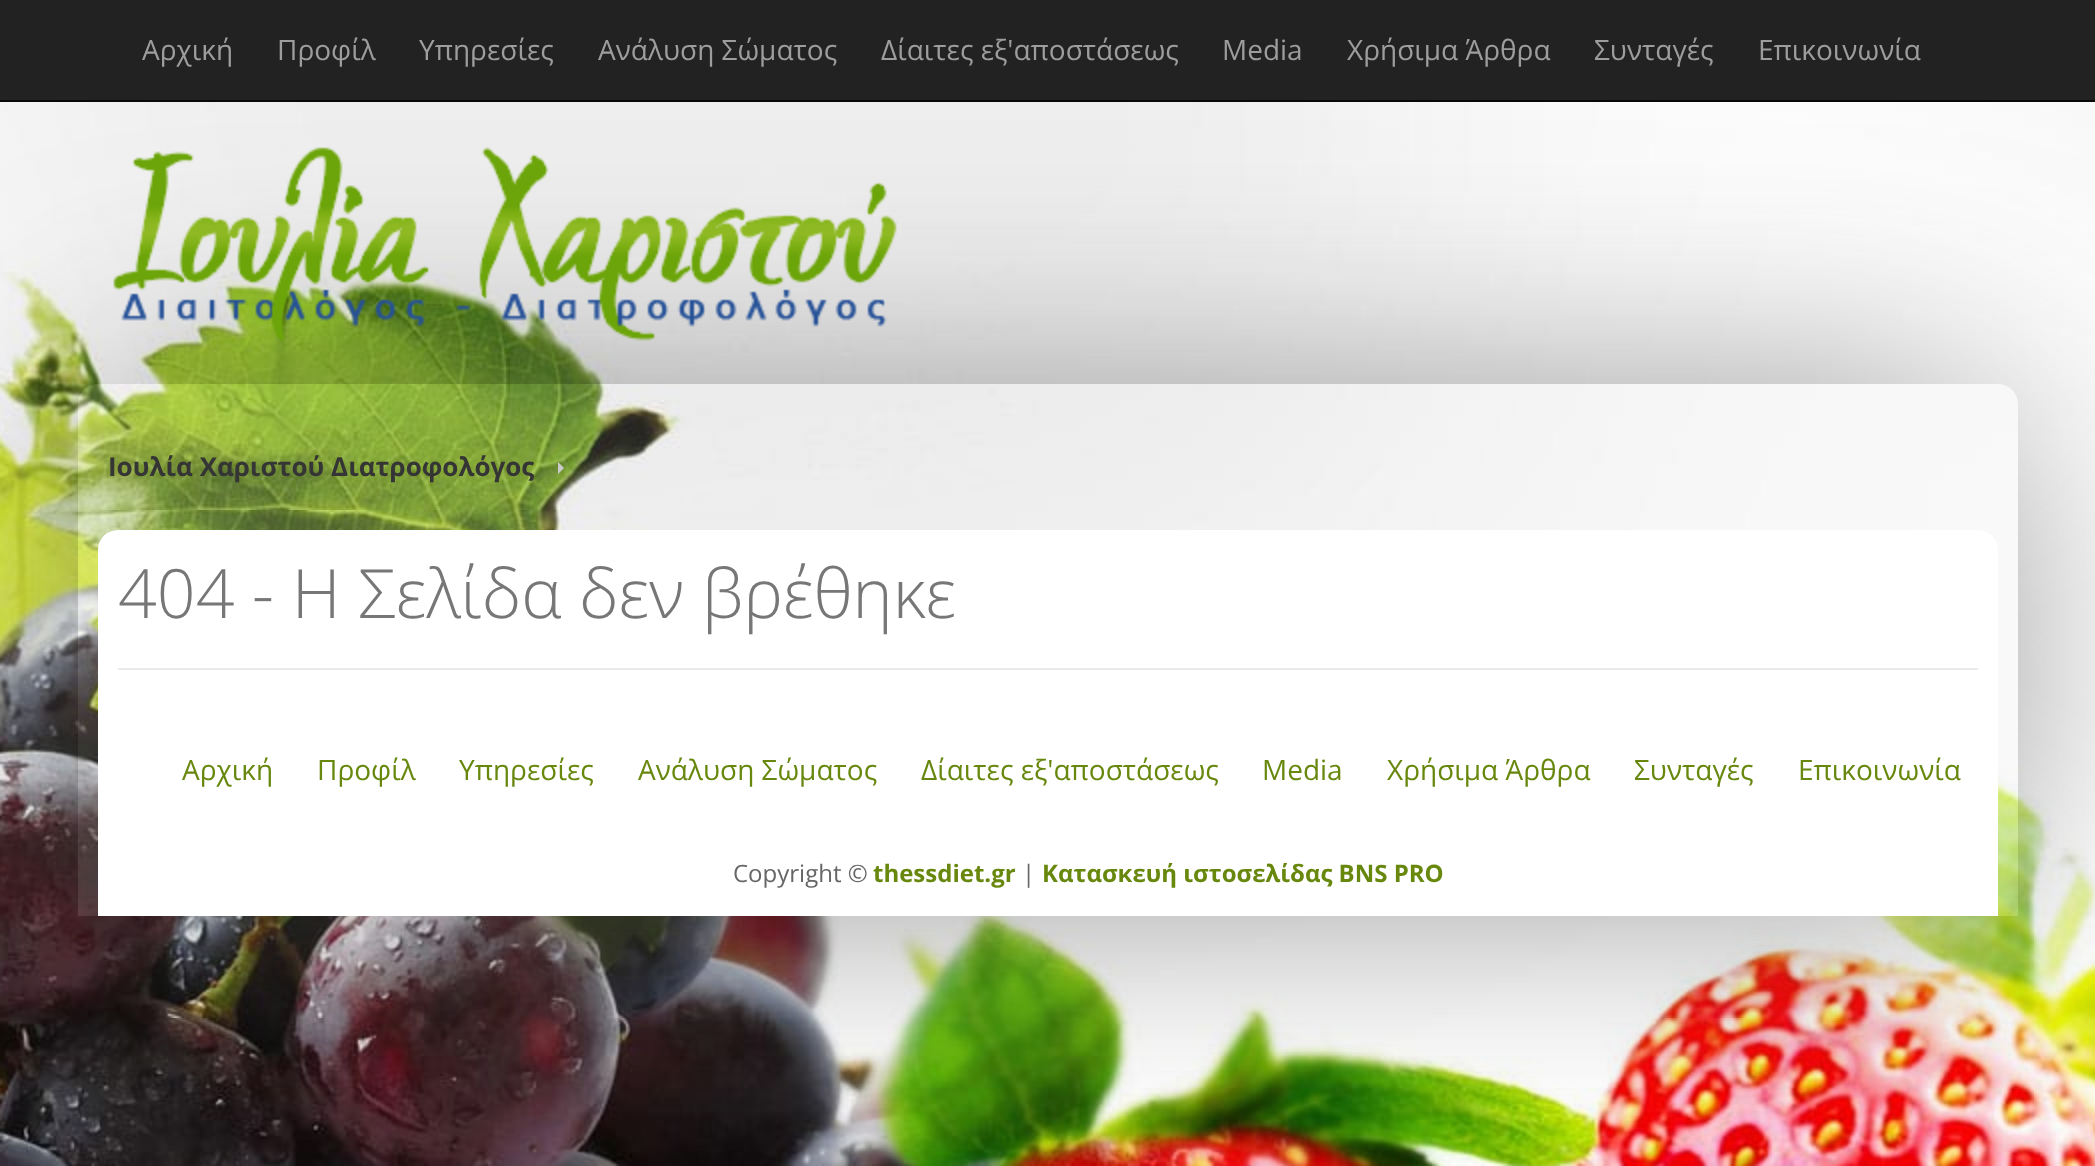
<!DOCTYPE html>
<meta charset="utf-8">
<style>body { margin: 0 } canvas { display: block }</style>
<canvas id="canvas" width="2095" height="1166"></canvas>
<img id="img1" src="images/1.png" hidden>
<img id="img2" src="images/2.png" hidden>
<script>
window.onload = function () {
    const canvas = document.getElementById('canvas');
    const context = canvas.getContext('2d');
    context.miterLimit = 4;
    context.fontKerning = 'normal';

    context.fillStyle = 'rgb(255, 255, 255)';
    context.fillRect(0, 0, 2095, 1166);
    context.drawImage(document.getElementById('img1'), 0, 102, 2095, 1064);
    context.save();
    context.beginPath();
    context.moveTo(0, 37);
    context.lineTo(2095, 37);
    context.lineTo(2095, 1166);
    context.lineTo(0, 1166);
    context.closePath();
    context.moveTo(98, 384);
    context.lineTo(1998, 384);
    context.bezierCurveTo(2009, 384, 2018, 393, 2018, 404);
    context.lineTo(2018, 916);
    context.lineTo(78, 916);
    context.lineTo(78, 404);
    context.bezierCurveTo(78, 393, 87, 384, 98, 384);
    context.closePath();
    context.clip('evenodd');
    context.fillStyle = 'rgba(82, 82, 82, 0.64)';
    context.filter = 'blur(122px)';
    context.beginPath();
    context.rect(98, 404, 1900, 492);
    context.fill();
    context.filter = 'none';
    context.restore();
    context.fillStyle = 'rgb(34, 34, 34)';
    context.fillRect(0, 0, 2095, 100);
    context.fillStyle = 'rgb(8, 8, 8)';
    context.fillRect(0, 100, 2095, 2);
    context.drawImage(document.getElementById('img2'), 113, 147, 784, 194);
    context.fillStyle = 'rgba(218, 218, 218, 0.15)';
    context.beginPath();
    context.roundRect(78, 384, 1940, 532, [20, 20, 0, 0]);
    context.fill();
    context.fillStyle = 'rgb(204, 204, 204)';
    context.beginPath();
    context.moveTo(558, 474);
    context.lineTo(558, 462);
    context.lineTo(564, 468);
    context.closePath();
    context.fill();
    context.fillStyle = 'rgb(255, 255, 255)';
    context.beginPath();
    context.roundRect(98, 530, 1900, 386, [20, 20, 0, 0]);
    context.fill();
    context.fillStyle = 'rgb(234, 234, 234)';
    context.fillRect(118, 668, 1860, 2);
    context.font = '28px Open Sans';
    context.fillStyle = 'rgb(157, 157, 157)';
    context.fillText('Αρχική', 142, 60);
    context.fillText('Προφίλ', 277, 60);
    context.fillText('Υπηρεσίες', 419, 60);
    context.fillText('Ανάλυση Σώματος', 598, 60);
    context.fillText('Δίαιτες εξ\'αποστάσεως', 881, 60);
    context.fillText('Media', 1222, 60);
    context.fillText('Χρήσιμα Άρθρα', 1347, 60);
    context.fillText('Συνταγές', 1594, 60);
    context.fillText('Επικοινωνία', 1758, 60);
    context.font = 'bold 26px Open Sans';
    context.fillStyle = 'rgb(53, 53, 53)';
    context.fillText('Ιουλία Χαριστού Διατροφολόγος', 108, 476);
    context.font = '300 68px Open Sans';
    context.fillStyle = 'rgb(119, 119, 119)';
    context.fillText('404 - Η Σελίδα δεν βρέθηκε', 118, 618);
    context.font = '28px Open Sans';
    context.fillStyle = 'rgb(103, 135, 13)';
    context.fillText('Αρχική', 182, 780);
    context.fillText('Προφίλ', 317, 780);
    context.fillText('Υπηρεσίες', 459, 780);
    context.fillText('Ανάλυση Σώματος', 638, 780);
    context.fillText('Δίαιτες εξ\'αποστάσεως', 921, 780);
    context.fillText('Media', 1262, 780);
    context.fillText('Χρήσιμα Άρθρα', 1387, 780);
    context.fillText('Συνταγές', 1634, 780);
    context.fillText('Επικοινωνία', 1798, 780);
    context.font = '24px Open Sans';
    context.fillStyle = 'rgb(102, 102, 102)';
    context.fillText('Copyright ©', 733, 882);
    context.font = 'bold 24px Open Sans';
    context.fillStyle = 'rgb(103, 135, 13)';
    context.fillText('thessdiet.gr', 873, 882);
    context.font = '24px Open Sans';
    context.fillStyle = 'rgb(102, 102, 102)';
    context.fillText('|', 1022, 882);
    context.font = 'bold 24px Open Sans';
    context.fillStyle = 'rgb(103, 135, 13)';
    context.fillText('Κατασκευή ιστοσελίδας BNS PRO', 1042, 882);
};
</script>
